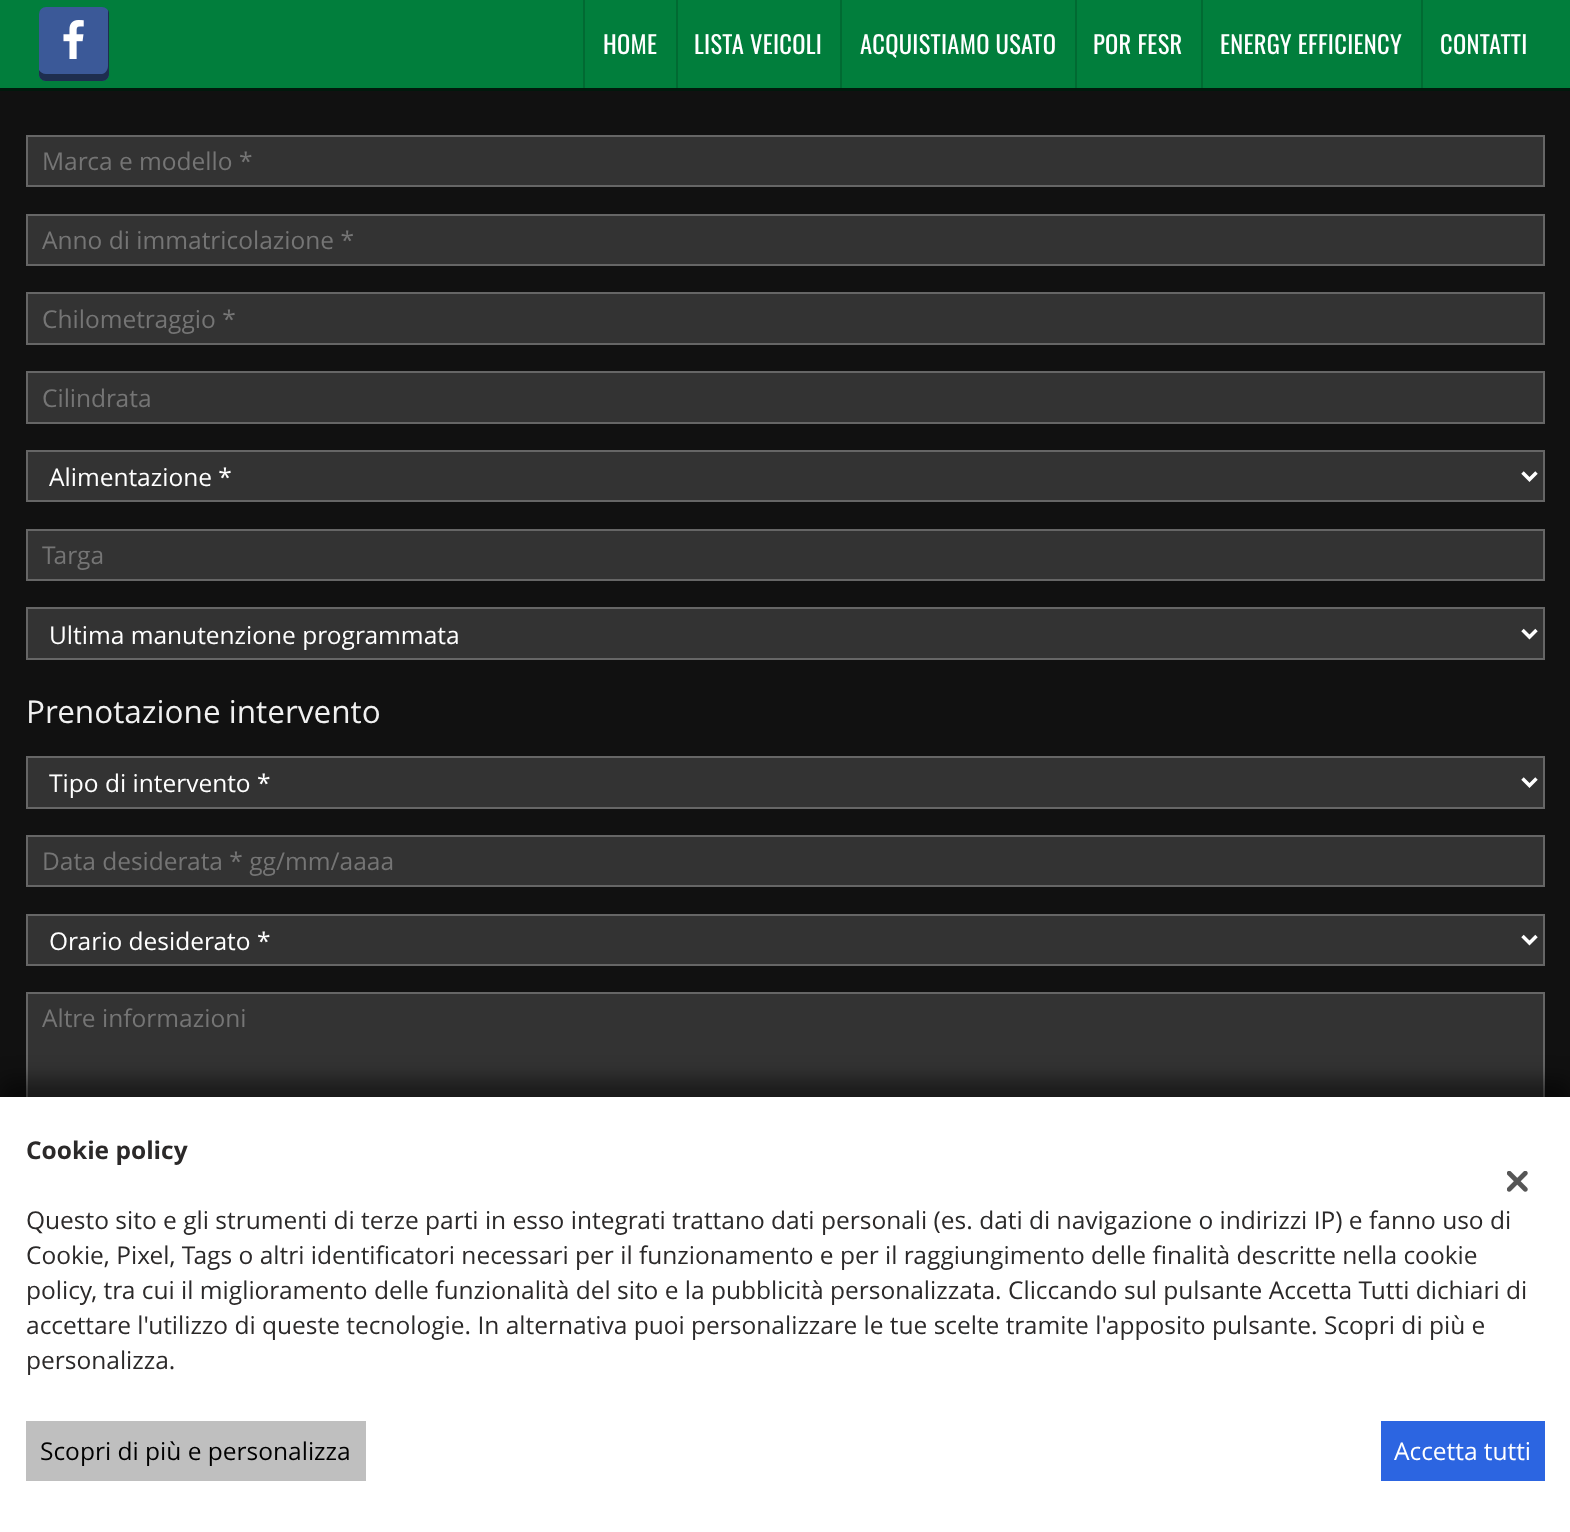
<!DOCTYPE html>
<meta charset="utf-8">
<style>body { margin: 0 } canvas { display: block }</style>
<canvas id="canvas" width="1570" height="1532"></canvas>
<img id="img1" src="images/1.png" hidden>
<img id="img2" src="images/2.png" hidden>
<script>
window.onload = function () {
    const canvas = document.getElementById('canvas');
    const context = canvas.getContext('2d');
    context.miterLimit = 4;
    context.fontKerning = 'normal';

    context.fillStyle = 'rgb(17, 17, 17)';
    context.fillRect(0, 0, 1570, 1532);
    context.fillStyle = 'rgb(0, 25, 12)';
    context.beginPath();
    context.moveTo(0, 88);
    context.lineTo(0, 91);
    context.lineTo(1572, 91);
    context.lineTo(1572, 4);
    context.lineTo(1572, 88);
    context.closePath();
    context.fill();
    context.fillStyle = 'rgb(1, 126, 60)';
    context.fillRect(0, 0, 1570, 88);
    context.fillStyle = 'rgb(59, 89, 152)';
    context.beginPath();
    context.roundRect(39, 7, 70, 74, 7);
    context.fill();
    context.fillStyle = 'rgb(30, 46, 79)';
    context.beginPath();
    context.moveTo(39, 70);
    context.lineTo(39, 74);
    context.bezierCurveTo(39, 78, 42, 81, 46, 81);
    context.lineTo(102, 81);
    context.bezierCurveTo(106, 81, 109, 78, 109, 74);
    context.lineTo(109, 14);
    context.bezierCurveTo(109, 13, 109, 11, 108, 10);
    context.lineTo(108, 66);
    context.bezierCurveTo(108, 70, 105, 74, 102, 74);
    context.lineTo(46, 74);
    context.bezierCurveTo(43, 74, 40, 72, 39, 70);
    context.closePath();
    context.fill();
    context.drawImage(document.getElementById('img1'), 63, 20, 21, 39);
    context.fillStyle = 'rgb(1, 106, 50)';
    context.fillRect(583, 0, 2, 88);
    context.fillRect(676, 0, 2, 88);
    context.fillRect(840, 0, 2, 88);
    context.fillRect(1075, 0, 2, 88);
    context.fillRect(1201, 0, 2, 88);
    context.fillRect(1421, 0, 2, 88);
    context.fillStyle = 'rgb(51, 51, 51)';
    context.beginPath();
    context.rect(27, 136, 1517, 50);
    context.fill();
    context.strokeStyle = 'rgb(102, 102, 102)';
    context.lineWidth = 2;
    context.stroke();
    context.beginPath();
    context.rect(27, 215, 1517, 50);
    context.fill();
    context.stroke();
    context.beginPath();
    context.rect(27, 293, 1517, 51);
    context.fill();
    context.stroke();
    context.beginPath();
    context.rect(27, 372, 1517, 51);
    context.fill();
    context.stroke();
    context.beginPath();
    context.rect(27, 451, 1517, 50);
    context.fill();
    context.stroke();
    context.beginPath();
    context.moveTo(1522.5, 472.5);
    context.lineTo(1529.5, 479.5);
    context.lineTo(1536.5, 472.5);
    context.strokeStyle = 'rgb(255, 255, 255)';
    context.lineWidth = 3.5;
    context.stroke();
    context.beginPath();
    context.rect(27, 530, 1517, 50);
    context.fill();
    context.strokeStyle = 'rgb(102, 102, 102)';
    context.lineWidth = 2;
    context.stroke();
    context.beginPath();
    context.rect(27, 608, 1517, 51);
    context.fill();
    context.stroke();
    context.beginPath();
    context.moveTo(1522.5, 630);
    context.lineTo(1529.5, 637);
    context.lineTo(1536.5, 630);
    context.strokeStyle = 'rgb(255, 255, 255)';
    context.lineWidth = 3.5;
    context.stroke();
    context.beginPath();
    context.rect(27, 757, 1517, 51);
    context.fill();
    context.strokeStyle = 'rgb(102, 102, 102)';
    context.lineWidth = 2;
    context.stroke();
    context.beginPath();
    context.moveTo(1522.5, 778.5);
    context.lineTo(1529.5, 785.5);
    context.lineTo(1536.5, 778.5);
    context.strokeStyle = 'rgb(255, 255, 255)';
    context.lineWidth = 3.5;
    context.stroke();
    context.beginPath();
    context.rect(27, 836, 1517, 50);
    context.fill();
    context.strokeStyle = 'rgb(102, 102, 102)';
    context.lineWidth = 2;
    context.stroke();
    context.beginPath();
    context.rect(27, 915, 1517, 50);
    context.fill();
    context.stroke();
    context.beginPath();
    context.moveTo(1522.5, 936);
    context.lineTo(1529.5, 943);
    context.lineTo(1536.5, 936);
    context.strokeStyle = 'rgb(255, 255, 255)';
    context.lineWidth = 3.5;
    context.stroke();
    context.fillRect(28, 994, 1515, 103);
    context.strokeStyle = 'rgb(102, 102, 102)';
    context.lineWidth = 2;
    context.strokeRect(27, 993, 1517, 130);
    context.fillStyle = 'rgba(0, 0, 0, 0.5)';
    context.filter = 'blur(10.5px)';
    context.beginPath();
    context.rect(0, 1080, 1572, 436);
    context.fill();
    context.filter = 'none';
    context.fillStyle = 'rgb(255, 255, 255)';
    context.fillRect(0, 1097, 1570, 435);
    context.fillStyle = 'rgb(191, 191, 191)';
    context.fillRect(26, 1421, 340, 60);
    context.fillStyle = 'rgb(44, 101, 225)';
    context.fillRect(1381, 1421, 164, 60);
    context.drawImage(document.getElementById('img2'), 1507, 1171, 21, 21);
    context.letterSpacing = '0.3px';
    context.font = '24.5px Oswald';
    context.fillStyle = 'rgb(255, 255, 255)';
    context.fillText('HOME', 603, 54);
    context.fillText('LISTA VEICOLI', 694, 54);
    context.fillText('ACQUISTIAMO USATO', 860, 54);
    context.fillText('POR FESR', 1093, 54);
    context.fillText('ENERGY EFFICIENCY', 1220, 54);
    context.fillText('CONTATTI', 1440, 54);
    context.letterSpacing = '0px';
    context.font = '24.5px Open Sans';
    context.fillStyle = 'rgb(117, 117, 117)';
    context.fillText('Marca e modello *', 42, 170);
    context.fillText('Anno di immatricolazione *', 42, 249);
    context.fillText('Chilometraggio *', 42, 328);
    context.fillText('Cilindrata', 42, 407);
    context.fillStyle = 'rgb(255, 255, 255)';
    context.fillText('Alimentazione *', 49, 486);
    context.fillStyle = 'rgb(117, 117, 117)';
    context.fillText('Targa', 42, 564);
    context.fillStyle = 'rgb(255, 255, 255)';
    context.fillText('Ultima manutenzione programmata', 49, 644);
    context.font = '31.5px Open Sans';
    context.fillStyle = 'rgb(240, 240, 240)';
    context.fillText('Prenotazione intervento', 26, 723);
    context.font = '24.5px Open Sans';
    context.fillStyle = 'rgb(255, 255, 255)';
    context.fillText('Tipo di intervento *', 49, 792);
    context.fillStyle = 'rgb(117, 117, 117)';
    context.fillText('Data desiderata * gg/mm/aaaa', 42, 870);
    context.fillStyle = 'rgb(255, 255, 255)';
    context.fillText('Orario desiderato *', 49, 950);
    context.fillStyle = 'rgb(117, 117, 117)';
    context.fillText('Altre informazioni', 42, 1027);
    context.font = 'bold 24.5px Open Sans';
    context.fillStyle = 'rgb(43, 41, 41)';
    context.fillText('Cookie policy', 26, 1159);
    context.font = '24.5px Open Sans';
    context.fillText('Questo sito e gli strumenti di terze parti in esso integrati trattano dati personali (es. dati di navigazione o indirizzi IP) e fanno uso di', 26, 1229);
    context.fillText('Cookie, Pixel, Tags o altri identificatori necessari per il funzionamento e per il raggiungimento delle finalità descritte nella cookie', 26, 1264);
    context.fillText('policy, tra cui il miglioramento delle funzionalità del sito e la pubblicità personalizzata. Cliccando sul pulsante Accetta Tutti dichiari di', 26, 1299);
    context.fillText('accettare l\'utilizzo di queste tecnologie. In alternativa puoi personalizzare le tue scelte tramite l\'apposito pulsante. Scopri di più e', 26, 1334);
    context.fillText('personalizza.', 26, 1369);
    context.fillStyle = 'rgb(0, 0, 0)';
    context.fillText('Scopri di più e personalizza', 40, 1460);
    context.fillStyle = 'rgb(255, 255, 255)';
    context.fillText('Accetta tutti', 1394, 1460);
};
</script>
